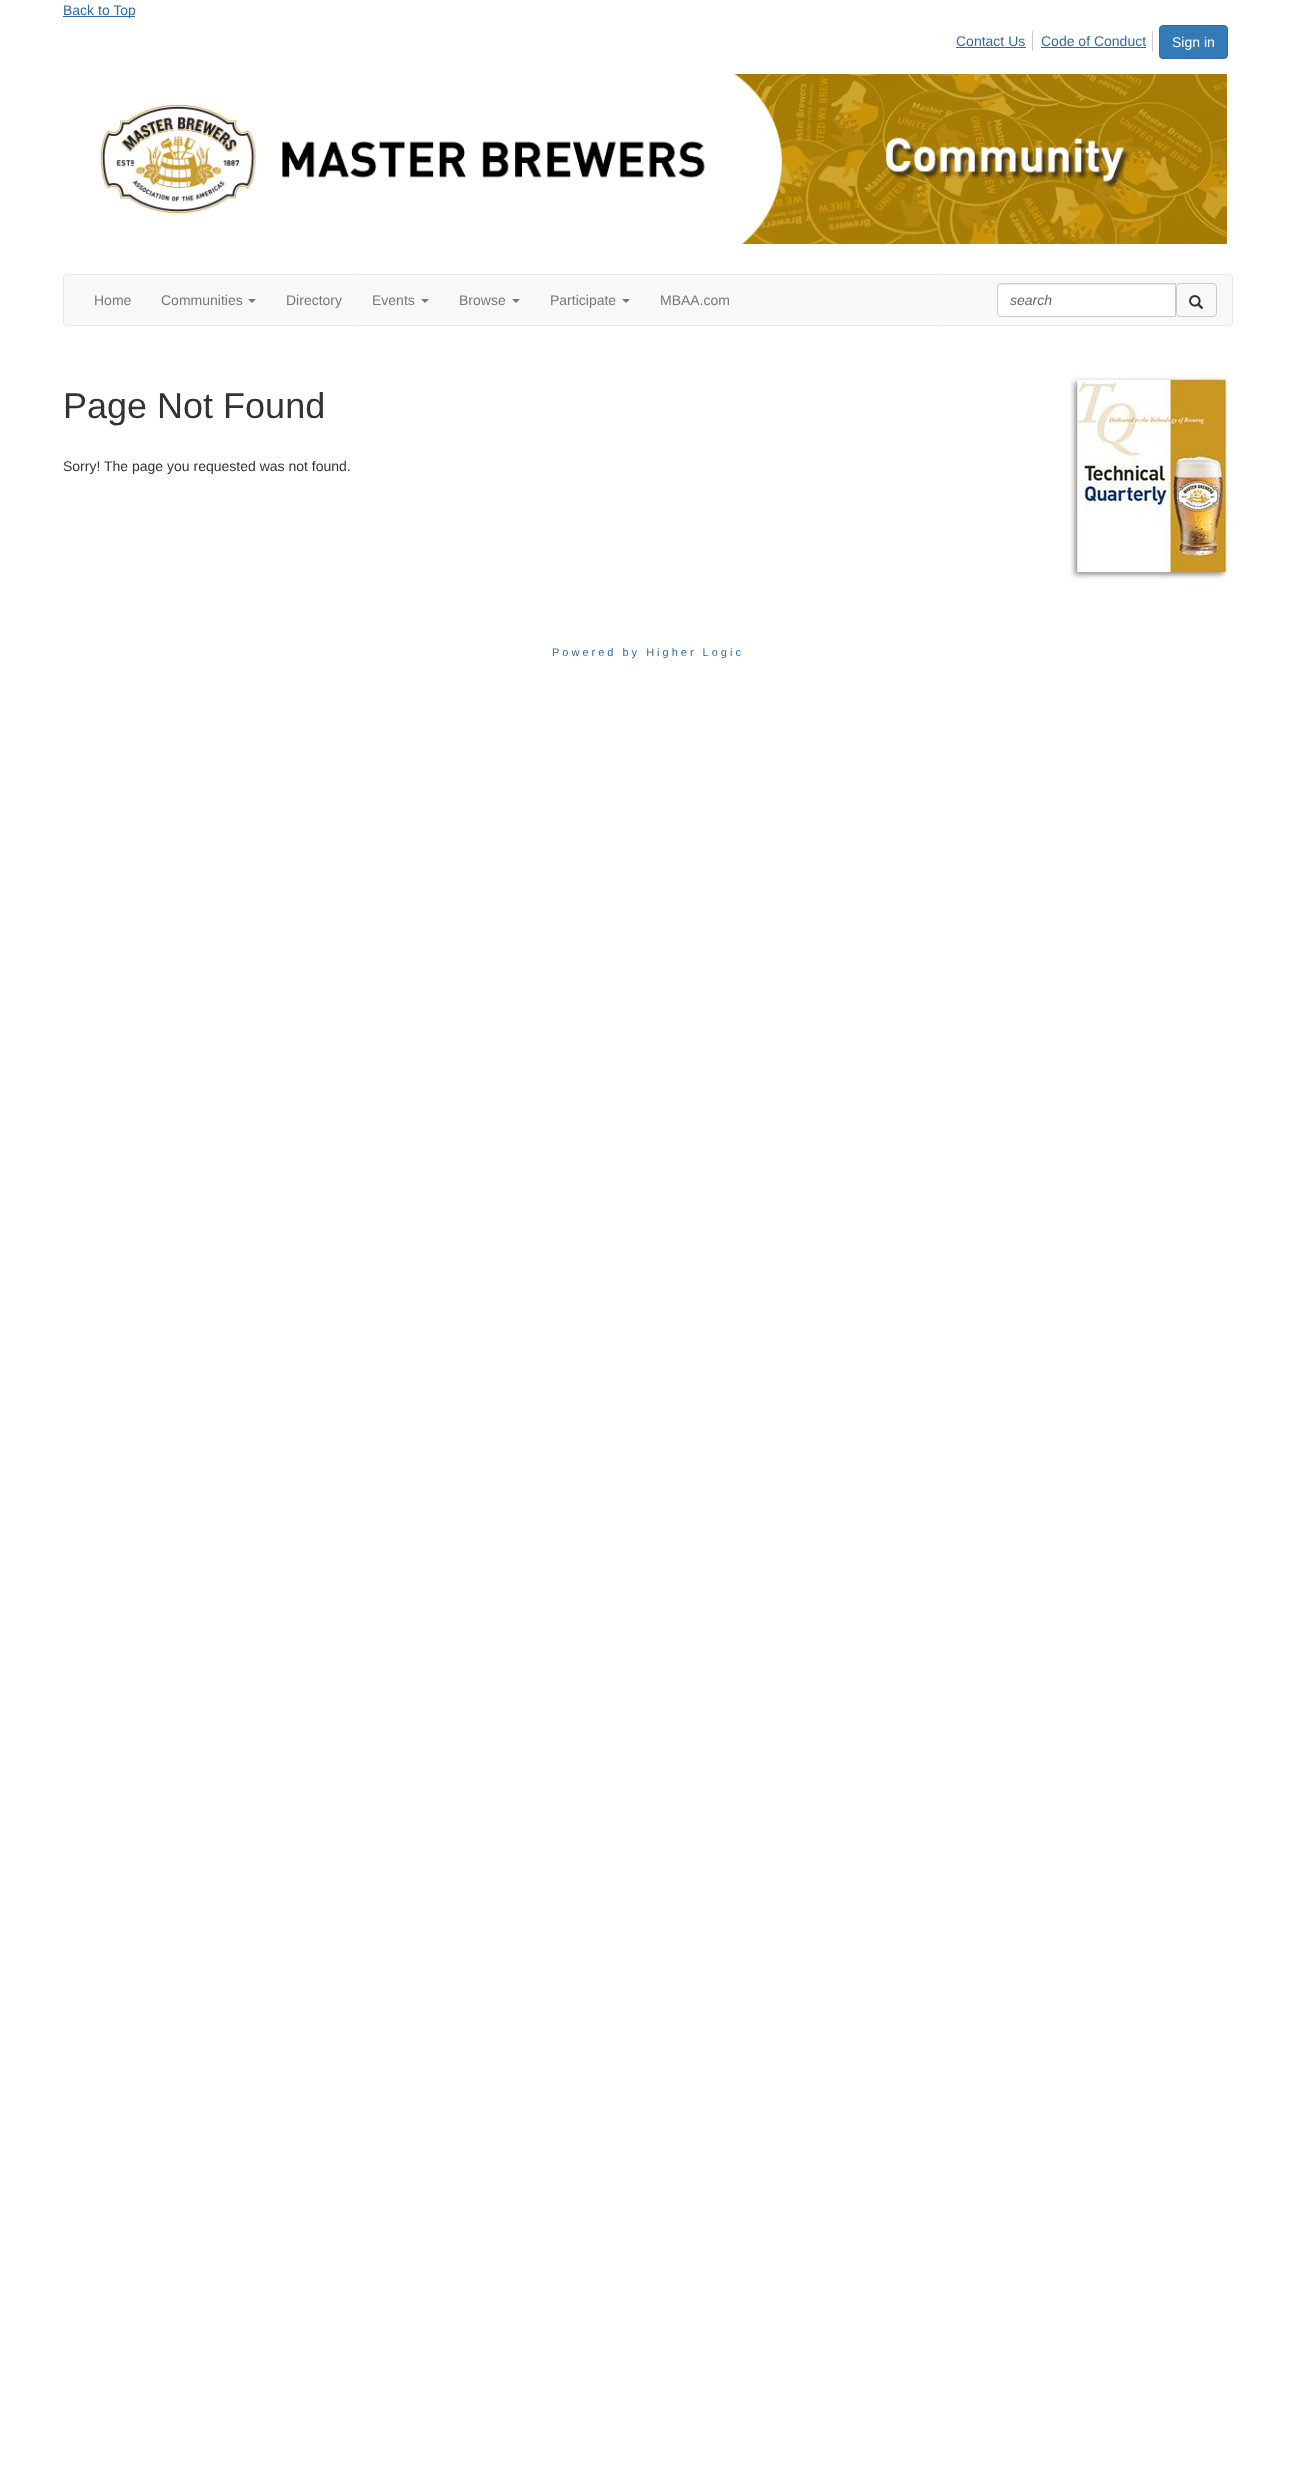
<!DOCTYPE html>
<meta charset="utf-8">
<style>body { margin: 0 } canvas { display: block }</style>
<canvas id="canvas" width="1295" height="2486"></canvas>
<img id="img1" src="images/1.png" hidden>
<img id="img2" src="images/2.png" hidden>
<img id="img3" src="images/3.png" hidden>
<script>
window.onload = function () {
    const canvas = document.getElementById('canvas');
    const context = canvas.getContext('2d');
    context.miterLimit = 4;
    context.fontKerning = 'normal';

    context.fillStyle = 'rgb(255, 255, 255)';
    context.fillRect(0, 0, 1295, 2486);
    context.fillStyle = 'rgb(46, 109, 164)';
    context.fillRect(63, 16, 72, 1);
    context.fillStyle = 'rgb(204, 204, 204)';
    context.fillRect(1032, 31, 1, 20);
    context.fillStyle = 'rgb(46, 109, 164)';
    context.fillRect(956, 47, 70, 1);
    context.fillStyle = 'rgb(204, 204, 204)';
    context.fillRect(1152, 31, 1, 20);
    context.fillStyle = 'rgb(46, 109, 164)';
    context.fillRect(1041, 47, 105, 1);
    context.fillStyle = 'rgb(51, 122, 183)';
    context.beginPath();
    context.roundRect(1159.5, 25.5, 68, 33, 3.5);
    context.fill();
    context.strokeStyle = 'rgb(46, 109, 164)';
    context.stroke();
    context.drawImage(document.getElementById('img1'), 100, 74, 1127, 170);
    context.fillStyle = 'rgb(248, 248, 248)';
    context.beginPath();
    context.roundRect(63.5, 274.5, 1169, 51, 3.5);
    context.fill();
    context.strokeStyle = 'rgb(231, 231, 231)';
    context.stroke();
    context.fillStyle = 'rgb(119, 119, 119)';
    context.beginPath();
    context.moveTo(248, 299);
    context.lineTo(256, 299);
    context.lineTo(252, 303);
    context.closePath();
    context.fill();
    context.beginPath();
    context.moveTo(421, 299);
    context.lineTo(429, 299);
    context.lineTo(425, 303);
    context.closePath();
    context.fill();
    context.beginPath();
    context.moveTo(512, 299);
    context.lineTo(520, 299);
    context.lineTo(516, 303);
    context.closePath();
    context.fill();
    context.beginPath();
    context.moveTo(622, 299);
    context.lineTo(630, 299);
    context.lineTo(626, 303);
    context.closePath();
    context.fill();
    context.fillStyle = 'rgb(255, 255, 255)';
    context.beginPath();
    context.roundRect(997, 283, 179, 34, [4, 0, 0, 4]);
    context.fill();
    context.fillStyle = 'rgb(236, 236, 236)';
    context.beginPath();
    context.moveTo(1001, 285);
    context.lineTo(1175, 285);
    context.lineTo(1175, 284);
    context.lineTo(1000, 284);
    context.bezierCurveTo(998, 285, 998, 286, 998, 288);
    context.bezierCurveTo(998, 286, 999, 285, 1001, 285);
    context.closePath();
    context.fill();
    context.beginPath();
    context.roundRect(997.5, 283.5, 178, 33, [3.5, 0, 0, 3.5]);
    context.strokeStyle = 'rgb(204, 204, 204)';
    context.stroke();
    context.beginPath();
    context.roundRect(1176.5, 283.5, 40, 33, 3.5);
    context.stroke();
    context.drawImage(document.getElementById('img2'), 1189, 295, 15, 14);
    context.drawImage(document.getElementById('img3'), 1068, 372, 160, 207);
    context.font = '14px Liberation Sans';
    context.fillStyle = 'rgb(46, 109, 164)';
    context.fillText('Back to Top', 63, 15);
    context.fillText('Contact Us', 956, 46);
    context.fillText('Code of Conduct', 1041, 46);
    context.fillStyle = 'rgb(255, 255, 255)';
    context.fillText('Sign in', 1172, 47);
    context.fillStyle = 'rgb(119, 119, 119)';
    context.fillText('Home', 94, 305);
    context.fillText('Communities', 161, 305);
    context.fillText('Directory', 286, 305);
    context.fillText('Events', 372, 305);
    context.fillText('Browse', 459, 305);
    context.fillText('Participate', 550, 305);
    context.fillText('MBAA.com', 660, 305);
    context.font = 'italic 14px Liberation Sans';
    context.fillStyle = 'rgb(102, 102, 102)';
    context.fillText('search', 1010, 305);
    context.font = '36px Liberation Sans';
    context.fillStyle = 'rgb(51, 51, 51)';
    context.fillText('Page Not Found', 63, 418);
    context.font = '14px Liberation Sans';
    context.fillText('Sorry! The page you requested was not found.', 63, 471);
    context.letterSpacing = '3px';
    context.font = '11px Liberation Sans';
    context.fillStyle = 'rgb(46, 109, 164)';
    context.fillText('Powered by Higher Logic', 552, 656);
};
</script>
